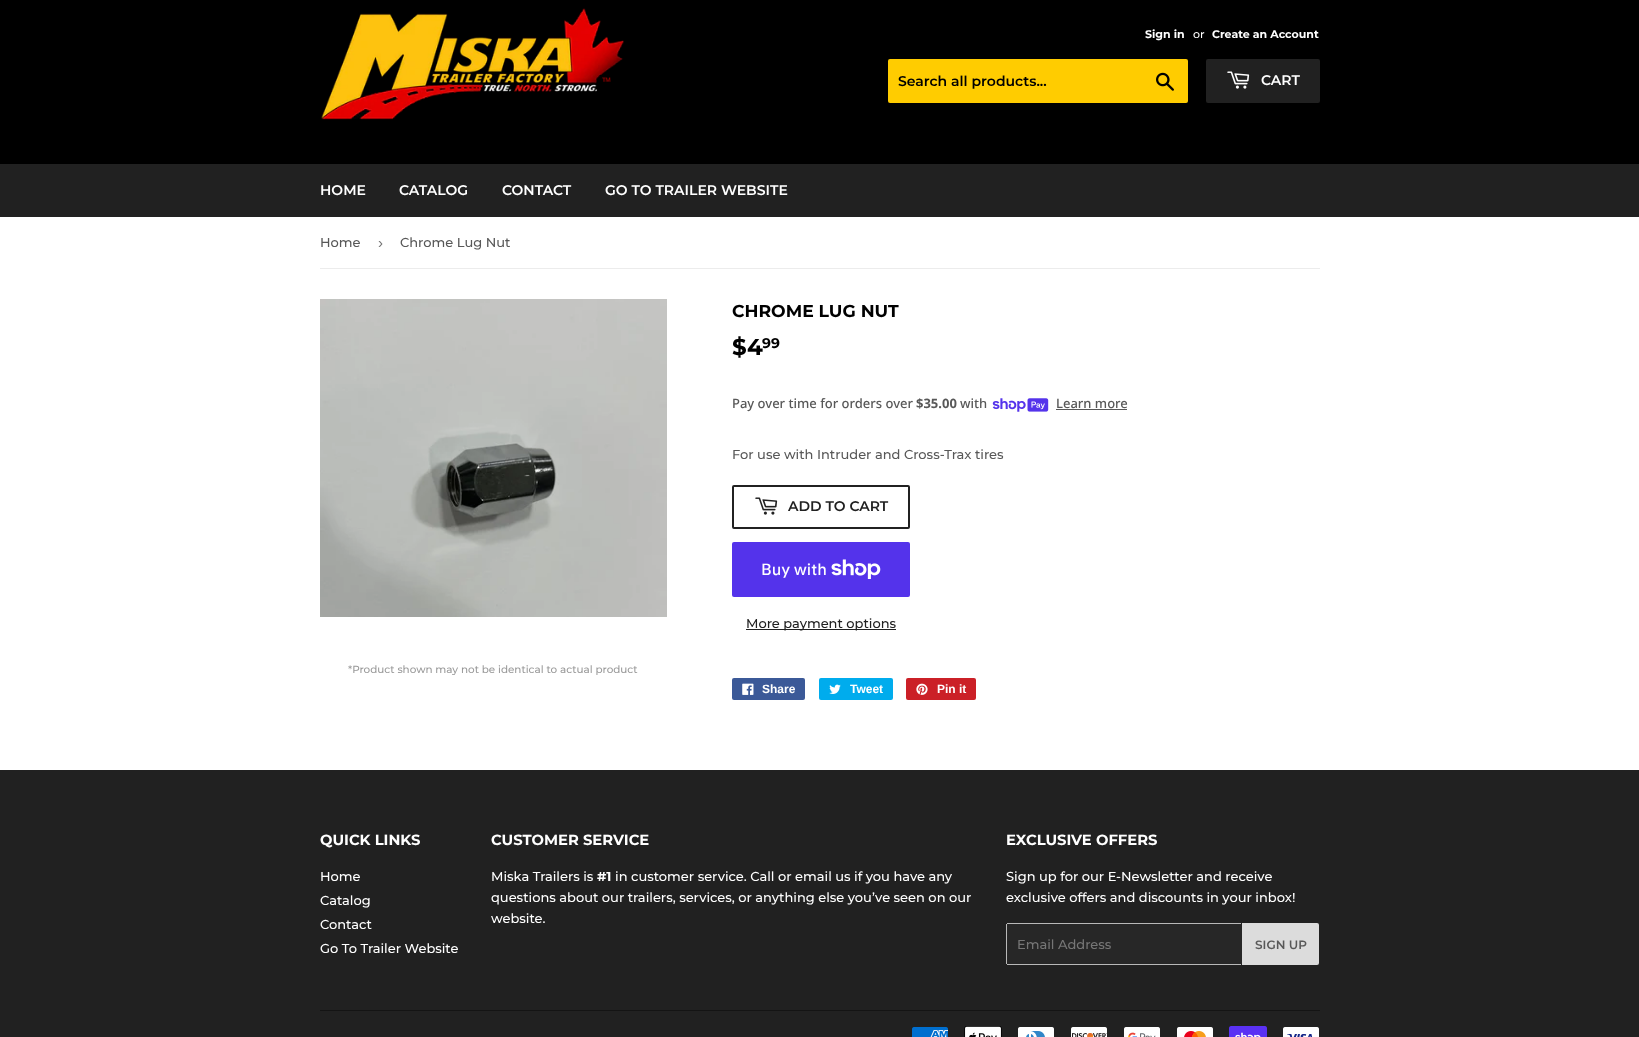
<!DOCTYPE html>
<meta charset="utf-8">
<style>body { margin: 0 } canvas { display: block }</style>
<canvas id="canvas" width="1639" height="1037"></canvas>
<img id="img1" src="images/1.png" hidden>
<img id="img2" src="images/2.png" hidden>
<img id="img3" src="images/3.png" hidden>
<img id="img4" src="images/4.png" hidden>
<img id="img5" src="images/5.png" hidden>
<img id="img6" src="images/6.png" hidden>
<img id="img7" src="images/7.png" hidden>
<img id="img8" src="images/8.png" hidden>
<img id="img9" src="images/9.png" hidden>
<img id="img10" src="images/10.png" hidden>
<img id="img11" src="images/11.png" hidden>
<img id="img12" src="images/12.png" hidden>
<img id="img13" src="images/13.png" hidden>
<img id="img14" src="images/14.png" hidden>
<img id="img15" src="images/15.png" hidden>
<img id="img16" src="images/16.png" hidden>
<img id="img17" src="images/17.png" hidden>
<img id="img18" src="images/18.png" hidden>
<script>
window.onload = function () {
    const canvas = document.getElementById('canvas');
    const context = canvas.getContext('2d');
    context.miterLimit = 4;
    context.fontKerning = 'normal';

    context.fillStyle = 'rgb(255, 255, 255)';
    context.fillRect(0, 0, 1639, 1037);
    context.fillStyle = 'rgb(0, 0, 0)';
    context.fillRect(0, 0, 1639, 164);
    context.drawImage(document.getElementById('img1'), 321, 8, 303, 112);
    context.fillStyle = 'rgb(255, 204, 0)';
    context.beginPath();
    context.roundRect(888, 59, 300, 44, 2);
    context.fill();
    context.drawImage(document.getElementById('img2'), 1156, 72, 18, 19);
    context.fillStyle = 'rgb(33, 33, 33)';
    context.beginPath();
    context.roundRect(1206, 59, 114, 44, 2);
    context.fill();
    context.drawImage(document.getElementById('img3'), 1227, 71, 23, 18);
    context.fillRect(0, 164, 1639, 53);
    context.fillStyle = 'rgb(236, 236, 236)';
    context.fillRect(320, 268, 1000, 1);
    context.drawImage(document.getElementById('img4'), 320, 299, 347, 318);
    context.drawImage(document.getElementById('img5'), 992, 398, 57, 14);
    context.fillStyle = 'rgb(88, 88, 88)';
    context.fillRect(1056, 409, 71, 1);
    context.beginPath();
    context.roundRect(733, 486, 176, 42, 1);
    context.strokeStyle = 'rgb(33, 33, 33)';
    context.lineWidth = 2;
    context.stroke();
    context.drawImage(document.getElementById('img6'), 755, 497, 23, 18);
    context.fillStyle = 'rgb(84, 51, 235)';
    context.beginPath();
    context.roundRect(732, 542, 178, 55, 2);
    context.fill();
    context.drawImage(document.getElementById('img7'), 831, 559, 50, 20);
    context.fillStyle = 'rgb(33, 33, 33)';
    context.fillRect(746, 629, 150, 1);
    context.fillStyle = 'rgb(59, 89, 152)';
    context.beginPath();
    context.roundRect(732, 678, 73, 22, 2);
    context.fill();
    context.drawImage(document.getElementById('img8'), 742, 683, 12, 12);
    context.fillStyle = 'rgb(0, 172, 237)';
    context.beginPath();
    context.roundRect(819, 678, 74, 22, 2);
    context.fill();
    context.drawImage(document.getElementById('img9'), 829, 684, 12, 10);
    context.fillStyle = 'rgb(203, 32, 39)';
    context.beginPath();
    context.roundRect(906, 678, 70, 22, 2);
    context.fill();
    context.drawImage(document.getElementById('img10'), 916, 683, 12, 12);
    context.fillStyle = 'rgb(33, 33, 33)';
    context.fillRect(0, 770, 1639, 267);
    context.fillStyle = 'rgb(39, 39, 39)';
    context.beginPath();
    context.roundRect(1006, 923, 236, 42, 2);
    context.fill();
    context.fillStyle = 'rgb(185, 185, 185)';
    context.fillRect(1007, 923, 234, 1);
    context.fillRect(1007, 964, 234, 1);
    context.fillRect(1006, 924, 1, 40);
    context.fillStyle = 'rgb(220, 220, 220)';
    context.beginPath();
    context.roundRect(1242, 923, 77, 42, [0, 2, 2, 0]);
    context.fill();
    context.fillStyle = 'rgb(20, 20, 20)';
    context.fillRect(320, 1010, 1000, 1);
    context.drawImage(document.getElementById('img11'), 912, 1027, 36, 10);
    context.drawImage(document.getElementById('img12'), 964, 1026, 38, 11);
    context.drawImage(document.getElementById('img13'), 1018, 1027, 36, 10);
    context.drawImage(document.getElementById('img14'), 1071, 1027, 36, 10);
    context.drawImage(document.getElementById('img15'), 1124, 1027, 36, 10);
    context.drawImage(document.getElementById('img16'), 1177, 1027, 36, 10);
    context.drawImage(document.getElementById('img17'), 1229, 1026, 38, 11);
    context.drawImage(document.getElementById('img18'), 1283, 1027, 36, 10);
    context.font = 'bold 11px Montserrat';
    context.fillStyle = 'rgb(255, 255, 255)';
    context.fillText('Sign in', 1145, 38);
    context.font = '500 11px Montserrat';
    context.fillText('or', 1193, 38);
    context.font = 'bold 11px Montserrat';
    context.fillText('Create an Account', 1212, 38);
    context.font = '600 14px Montserrat';
    context.fillStyle = 'rgb(0, 0, 0)';
    context.fillText('Search all products...', 898, 86);
    context.fillStyle = 'rgb(255, 255, 255)';
    context.fillText('CART', 1261, 85);
    context.fillText('HOME', 320, 195);
    context.fillText('CATALOG', 399, 195);
    context.fillText('CONTACT', 502, 195);
    context.fillText('GO TO TRAILER WEBSITE', 605, 195);
    context.font = '500 13px Montserrat';
    context.fillStyle = 'rgb(88, 88, 88)';
    context.fillText('Home', 320, 247);
    context.font = '15px Liberation Sans';
    context.fillStyle = 'rgb(118, 118, 118)';
    context.fillText('›', 378, 248);
    context.font = '500 13px Montserrat';
    context.fillStyle = 'rgb(88, 88, 88)';
    context.fillText('Chrome Lug Nut', 400, 247);
    context.font = '500 10.4px Montserrat';
    context.fillStyle = 'rgb(153, 153, 153)';
    context.fillText('*Product shown may not be identical to actual product', 348, 673);
    context.font = 'bold 17.25px Montserrat';
    context.fillStyle = 'rgb(0, 0, 0)';
    context.fillText('CHROME LUG NUT', 732, 317);
    context.font = 'bold 23px Montserrat';
    context.fillText('$4', 732, 355);
    context.font = 'bold 14px Montserrat';
    context.fillText('99', 762, 348);
    context.font = '500 13px Noto Sans';
    context.fillStyle = 'rgb(88, 88, 88)';
    context.fillText('Pay over time for orders over', 732, 408);
    context.font = 'bold 13px Noto Sans';
    context.fillText('$35.00', 916, 408);
    context.font = '500 13px Noto Sans';
    context.fillText('with', 960, 408);
    context.fillText('Learn more', 1056, 408);
    context.font = '500 13px Montserrat';
    context.fillText('For use with Intruder and Cross-Trax tires', 732, 459);
    context.font = '600 14px Montserrat';
    context.fillStyle = 'rgb(33, 33, 33)';
    context.fillText('ADD TO CART', 788, 511);
    context.font = '500 16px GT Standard';
    context.fillStyle = 'rgb(255, 255, 255)';
    context.fillText('Buy with', 761, 575);
    context.font = '500 13px Montserrat';
    context.fillStyle = 'rgb(33, 33, 33)';
    context.fillText('More payment options', 746, 628);
    context.font = 'bold 12px Liberation Sans';
    context.fillStyle = 'rgb(255, 255, 255)';
    context.fillText('Share', 762, 693);
    context.fillText('Tweet', 850, 693);
    context.fillText('Pin it', 937, 693);
    context.font = 'bold 14.75px Montserrat';
    context.fillText('QUICK LINKS', 320, 845);
    context.font = '500 13px Montserrat';
    context.fillText('Home', 320, 881);
    context.fillText('Catalog', 320, 905);
    context.fillText('Contact', 320, 929);
    context.fillText('Go To Trailer Website', 320, 953);
    context.font = 'bold 14.75px Montserrat';
    context.fillText('CUSTOMER SERVICE', 491, 845);
    context.font = '500 13px Montserrat';
    context.fillText('Miska Trailers is', 491, 881);
    context.font = 'bold 13px Montserrat';
    context.fillText('#1', 597, 881);
    context.font = '500 13px Montserrat';
    context.fillText('in customer service. Call or email us if you have any', 615, 881);
    context.fillText('questions about our trailers, services, or anything else you’ve seen on our', 491, 902);
    context.fillText('website.', 491, 923);
    context.font = 'bold 14.75px Montserrat';
    context.fillText('EXCLUSIVE OFFERS', 1006, 845);
    context.font = '500 13px Montserrat';
    context.fillText('Sign up for our E-Newsletter and receive', 1006, 881);
    context.fillText('exclusive offers and discounts in your inbox!', 1006, 902);
    context.fillStyle = 'rgb(118, 118, 118)';
    context.fillText('Email Address', 1017, 949);
    context.font = '600 12px Montserrat';
    context.fillStyle = 'rgb(88, 88, 88)';
    context.fillText('SIGN UP', 1255, 949);
};
</script>
